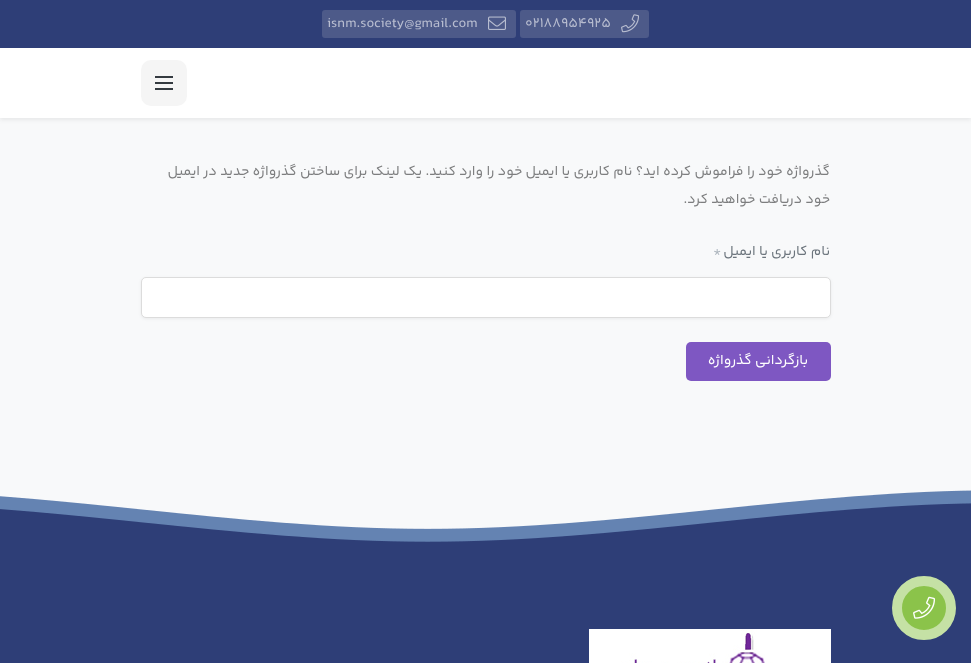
<!DOCTYPE html>
<meta charset="utf-8">
<style>body { margin: 0 } canvas { display: block }</style>
<canvas id="canvas" width="971" height="663"></canvas>
<img id="img1" src="images/1.png" hidden>
<img id="img2" src="images/2.png" hidden>
<img id="img3" src="images/3.png" hidden>
<img id="img4" src="images/4.png" hidden>
<img id="img5" src="images/5.png" hidden>
<script>
window.onload = function () {
    const canvas = document.getElementById('canvas');
    const context = canvas.getContext('2d');
    context.miterLimit = 4;
    context.fontKerning = 'normal';

    context.fillStyle = 'rgb(248, 249, 250)';
    context.fillRect(0, 0, 971, 663);
    context.fillStyle = 'rgba(0, 0, 0, 0.07)';
    context.filter = 'blur(2px)';
    context.beginPath();
    context.rect(0, 50, 971, 70);
    context.fill();
    context.filter = 'none';
    context.fillStyle = 'rgb(46, 62, 119)';
    context.fillRect(0, 0, 971, 48);
    context.fillStyle = 'rgb(77, 90, 137)';
    context.beginPath();
    context.roundRect(520, 10, 129, 28, 3);
    context.fill();
    context.drawImage(document.getElementById('img1'), 621, 14, 18, 19);
    context.beginPath();
    context.roundRect(322, 10, 194, 28, 3);
    context.fill();
    context.drawImage(document.getElementById('img2'), 488, 16, 18, 14);
    context.fillStyle = 'rgb(255, 255, 255)';
    context.fillRect(0, 48, 971, 70);
    context.fillStyle = 'rgb(245, 245, 245)';
    context.beginPath();
    context.roundRect(141, 60, 46, 46, 10);
    context.fill();
    context.fillStyle = 'rgb(52, 58, 64)';
    context.fillRect(155, 82, 18, 2);
    context.fillRect(155, 76, 18, 2);
    context.fillRect(155, 88, 18, 2);
    context.fillStyle = 'rgba(0, 0, 0, 0.06)';
    context.filter = 'blur(1.5px)';
    context.beginPath();
    context.roundRect(141, 278, 690, 41, 5);
    context.fill();
    context.filter = 'none';
    context.fillStyle = 'rgb(255, 255, 255)';
    context.beginPath();
    context.roundRect(141.5, 277.5, 689, 40, 4.5);
    context.fill();
    context.strokeStyle = 'rgb(220, 220, 220)';
    context.stroke();
    context.fillStyle = 'rgb(126, 87, 194)';
    context.beginPath();
    context.roundRect(686, 342, 145, 39, 5);
    context.fill();
    context.drawImage(document.getElementById('img3'), 0, 490, 971, 55);
    context.fillStyle = 'rgb(46, 62, 119)';
    context.fillRect(0, 545, 971, 118);
    context.drawImage(document.getElementById('img4'), 589, 629, 242, 34);
    context.fillStyle = 'rgb(139, 195, 74)';
    context.beginPath();
    context.arc(924, 608, 27, 0, 2 * Math.PI);
    context.fill();
    context.strokeStyle = 'rgb(197, 225, 165)';
    context.lineWidth = 10;
    context.stroke();
    context.drawImage(document.getElementById('img5'), 913, 596, 23, 23);
    context.font = '14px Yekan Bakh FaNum';
    context.fillStyle = 'rgb(184, 189, 208)';
    context.fillText('02188954925', 525, 27);
    context.fillText('isnm.society@gmail.com', 327, 27);
    context.direction = 'rtl';
    context.fillStyle = 'rgb(125, 126, 127)';
    context.fillText('گذرواژه خود را فراموش کرده اید؟ نام کاربری یا ایمیل خود را وارد کنید. یک لینک برای ساختن گذرواژه جدید در ایمیل', 830, 175);
    context.fillText('خود دریافت خواهید کرد.', 830, 203);
    context.fillStyle = 'rgb(108, 117, 125)';
    context.fillText('نام کاربری یا ایمیل', 830, 255);
    context.direction = 'ltr';
    context.fillStyle = 'rgb(173, 181, 189)';
    context.fillText('*', 713, 255);
    context.direction = 'rtl';
    context.fillStyle = 'rgb(255, 255, 255)';
    context.fillText('بازگردانی گذرواژه', 808, 364);
};
</script>
